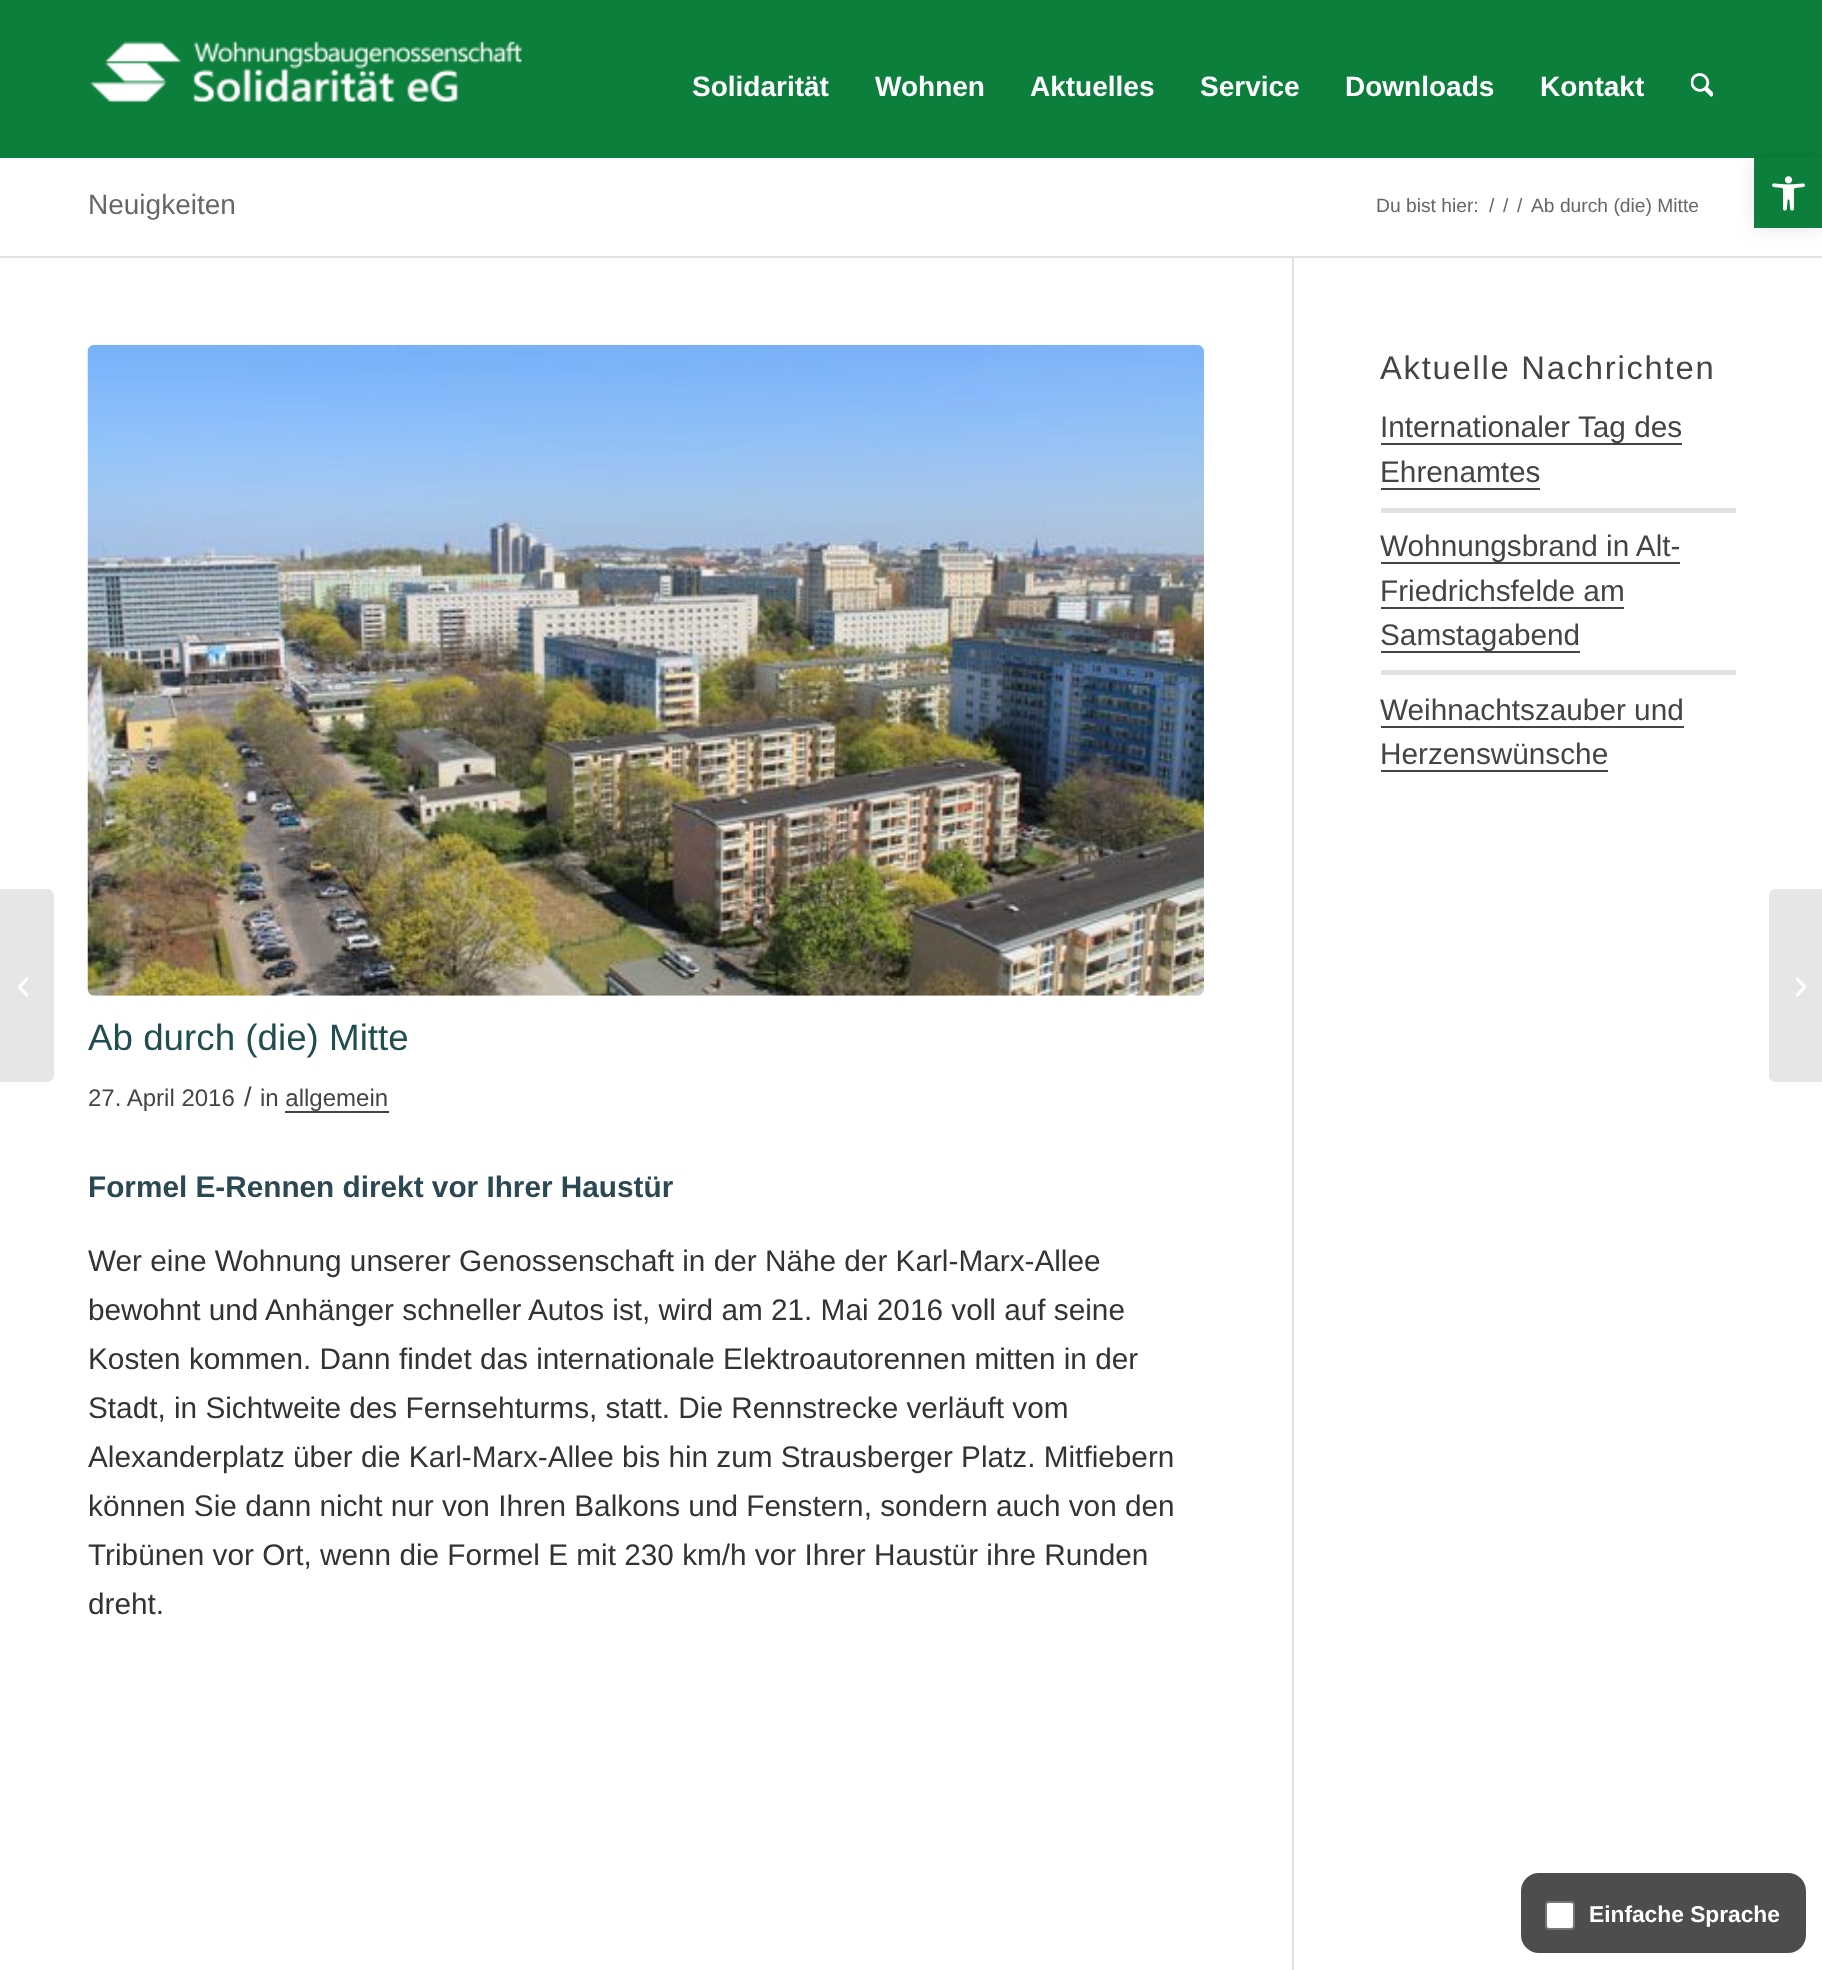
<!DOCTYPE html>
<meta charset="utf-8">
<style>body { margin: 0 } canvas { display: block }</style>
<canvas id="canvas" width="1822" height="1970"></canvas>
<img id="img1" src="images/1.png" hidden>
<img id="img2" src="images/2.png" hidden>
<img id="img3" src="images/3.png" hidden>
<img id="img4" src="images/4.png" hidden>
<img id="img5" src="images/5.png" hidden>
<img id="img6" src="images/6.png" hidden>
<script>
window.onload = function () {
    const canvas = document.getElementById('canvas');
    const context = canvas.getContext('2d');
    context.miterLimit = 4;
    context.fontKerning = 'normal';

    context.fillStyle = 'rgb(255, 255, 255)';
    context.fillRect(0, 0, 1822, 1970);
    context.fillStyle = 'rgb(13, 127, 60)';
    context.fillRect(0, 0, 1822, 158);
    context.drawImage(document.getElementById('img1'), 90, 41, 432, 61);
    context.drawImage(document.getElementById('img2'), 1691, 73, 22, 24);
    context.fillStyle = 'rgb(230, 230, 230)';
    context.beginPath();
    context.roundRect(0, 889, 54, 193, [0, 7, 7, 0]);
    context.fill();
    context.drawImage(document.getElementById('img3'), 18, 977, 10, 20);
    context.fillStyle = 'rgb(225, 225, 225)';
    context.fillRect(0, 256, 1822, 2);
    context.fillStyle = 'rgb(68, 68, 68)';
    context.fillRect(1381, 443, 301, 2);
    context.fillRect(1381, 488, 159, 2);
    context.fillStyle = 'rgb(225, 225, 225)';
    context.fillRect(1381, 508, 355, 5);
    context.fillStyle = 'rgb(68, 68, 68)';
    context.fillRect(1381, 562, 299, 2);
    context.fillRect(1381, 607, 243, 2);
    context.fillRect(1381, 651, 199, 2);
    context.fillStyle = 'rgb(225, 225, 225)';
    context.fillRect(1381, 670, 355, 5);
    context.fillStyle = 'rgb(68, 68, 68)';
    context.fillRect(1381, 726, 303, 2);
    context.fillRect(1381, 770, 227, 2);
    context.fillStyle = 'rgb(225, 225, 225)';
    context.fillRect(1292, 257, 2, 1713);
    context.drawImage(document.getElementById('img4'), 87, 344, 1117, 652);
    context.fillStyle = 'rgb(68, 68, 68)';
    context.fillRect(285, 1111, 104, 2);
    context.fillStyle = 'rgb(230, 230, 230)';
    context.beginPath();
    context.moveTo(1776, 889);
    context.lineTo(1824, 889);
    context.lineTo(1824, 1082);
    context.lineTo(1776, 1082);
    context.bezierCurveTo(1772, 1082, 1769, 1079, 1769, 1075);
    context.lineTo(1769, 896);
    context.bezierCurveTo(1769, 892, 1772, 889, 1776, 889);
    context.closePath();
    context.fill();
    context.drawImage(document.getElementById('img5'), 1796, 977, 10, 20);
    context.fillStyle = 'rgba(0, 0, 0, 0.1)';
    context.filter = 'blur(9px)';
    context.beginPath();
    context.rect(1754, 158, 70, 70);
    context.fill();
    context.filter = 'none';
    context.fillStyle = 'rgb(13, 127, 60)';
    context.fillRect(1754, 158, 68, 70);
    context.drawImage(document.getElementById('img6'), 1772, 176, 33, 35);
    context.fillStyle = 'rgb(77, 77, 77)';
    context.beginPath();
    context.roundRect(1521, 1873, 285, 80, 18);
    context.fill();
    context.fillStyle = 'rgb(255, 255, 255)';
    context.beginPath();
    context.roundRect(1546, 1902, 28, 27, 3);
    context.fill();
    context.strokeStyle = 'rgb(118, 118, 118)';
    context.lineWidth = 2;
    context.stroke();
    context.font = 'bold 28px Liberation Sans';
    context.fillText('Solidarität', 692, 96);
    context.fillText('Wohnen', 875, 96);
    context.fillText('Aktuelles', 1030, 96);
    context.fillText('Service', 1200, 96);
    context.fillText('Downloads', 1345, 96);
    context.fillText('Kontakt', 1540, 96);
    context.font = '28px Liberation Sans';
    context.fillStyle = 'rgb(102, 102, 102)';
    context.fillText('Neuigkeiten', 88, 214);
    context.font = '19.25px Liberation Sans';
    context.fillText('Du bist hier:', 1376, 212);
    context.fillText('/', 1489, 212);
    context.fillText('/', 1503, 212);
    context.fillText('/', 1517, 212);
    context.fillText('Ab durch (die) Mitte', 1531, 212);
    context.letterSpacing = '1.75px';
    context.font = '32.75px Liberation Sans';
    context.fillStyle = 'rgb(68, 68, 68)';
    context.fillText('Aktuelle Nachrichten', 1380, 379);
    context.letterSpacing = '0px';
    context.font = '29.75px Liberation Sans';
    context.fillText('Internationaler Tag des', 1380, 437);
    context.fillText('Ehrenamtes', 1380, 482);
    context.fillText('Wohnungsbrand in Alt-', 1380, 556);
    context.fillText('Friedrichsfelde am', 1380, 601);
    context.fillText('Samstagabend', 1380, 645);
    context.fillText('Weihnachtszauber und', 1380, 720);
    context.fillText('Herzenswünsche', 1380, 764);
    context.font = '36.75px Liberation Sans';
    context.fillStyle = 'rgb(32, 77, 79)';
    context.fillText('Ab durch (die) Mitte', 88, 1050);
    context.font = '24px Liberation Sans';
    context.fillStyle = 'rgb(68, 68, 68)';
    context.fillText('27. April 2016', 88, 1106);
    context.font = '27px Liberation Sans';
    context.fillText('/', 244, 1106);
    context.font = '24px Liberation Sans';
    context.fillText('in allgemein', 260, 1106);
    context.font = 'bold 29.75px Liberation Sans';
    context.fillStyle = 'rgb(44, 73, 83)';
    context.fillText('Formel E-Rennen direkt vor Ihrer Haustür', 88, 1197);
    context.font = '29.75px Liberation Sans';
    context.fillStyle = 'rgb(51, 51, 51)';
    context.fillText('Wer eine Wohnung unserer Genossenschaft in der Nähe der Karl-Marx-Allee', 88, 1271);
    context.fillText('bewohnt und Anhänger schneller Autos ist, wird am 21. Mai 2016 voll auf seine', 88, 1320);
    context.fillText('Kosten kommen. Dann findet das internationale Elektroautorennen mitten in der', 88, 1369);
    context.fillText('Stadt, in Sichtweite des Fernsehturms, statt. Die Rennstrecke verläuft vom', 88, 1418);
    context.fillText('Alexanderplatz über die Karl-Marx-Allee bis hin zum Strausberger Platz. Mitfiebern', 88, 1467);
    context.fillText('können Sie dann nicht nur von Ihren Balkons und Fenstern, sondern auch von den', 88, 1516);
    context.fillText('Tribünen vor Ort, wenn die Formel E mit 230 km/h vor Ihrer Haustür ihre Runden', 88, 1565);
    context.fillText('dreht.', 88, 1614);
    context.font = 'bold 22.75px Liberation Sans';
    context.fillStyle = 'rgb(255, 255, 255)';
    context.fillText('Einfache Sprache', 1589, 1922);
};
</script>
